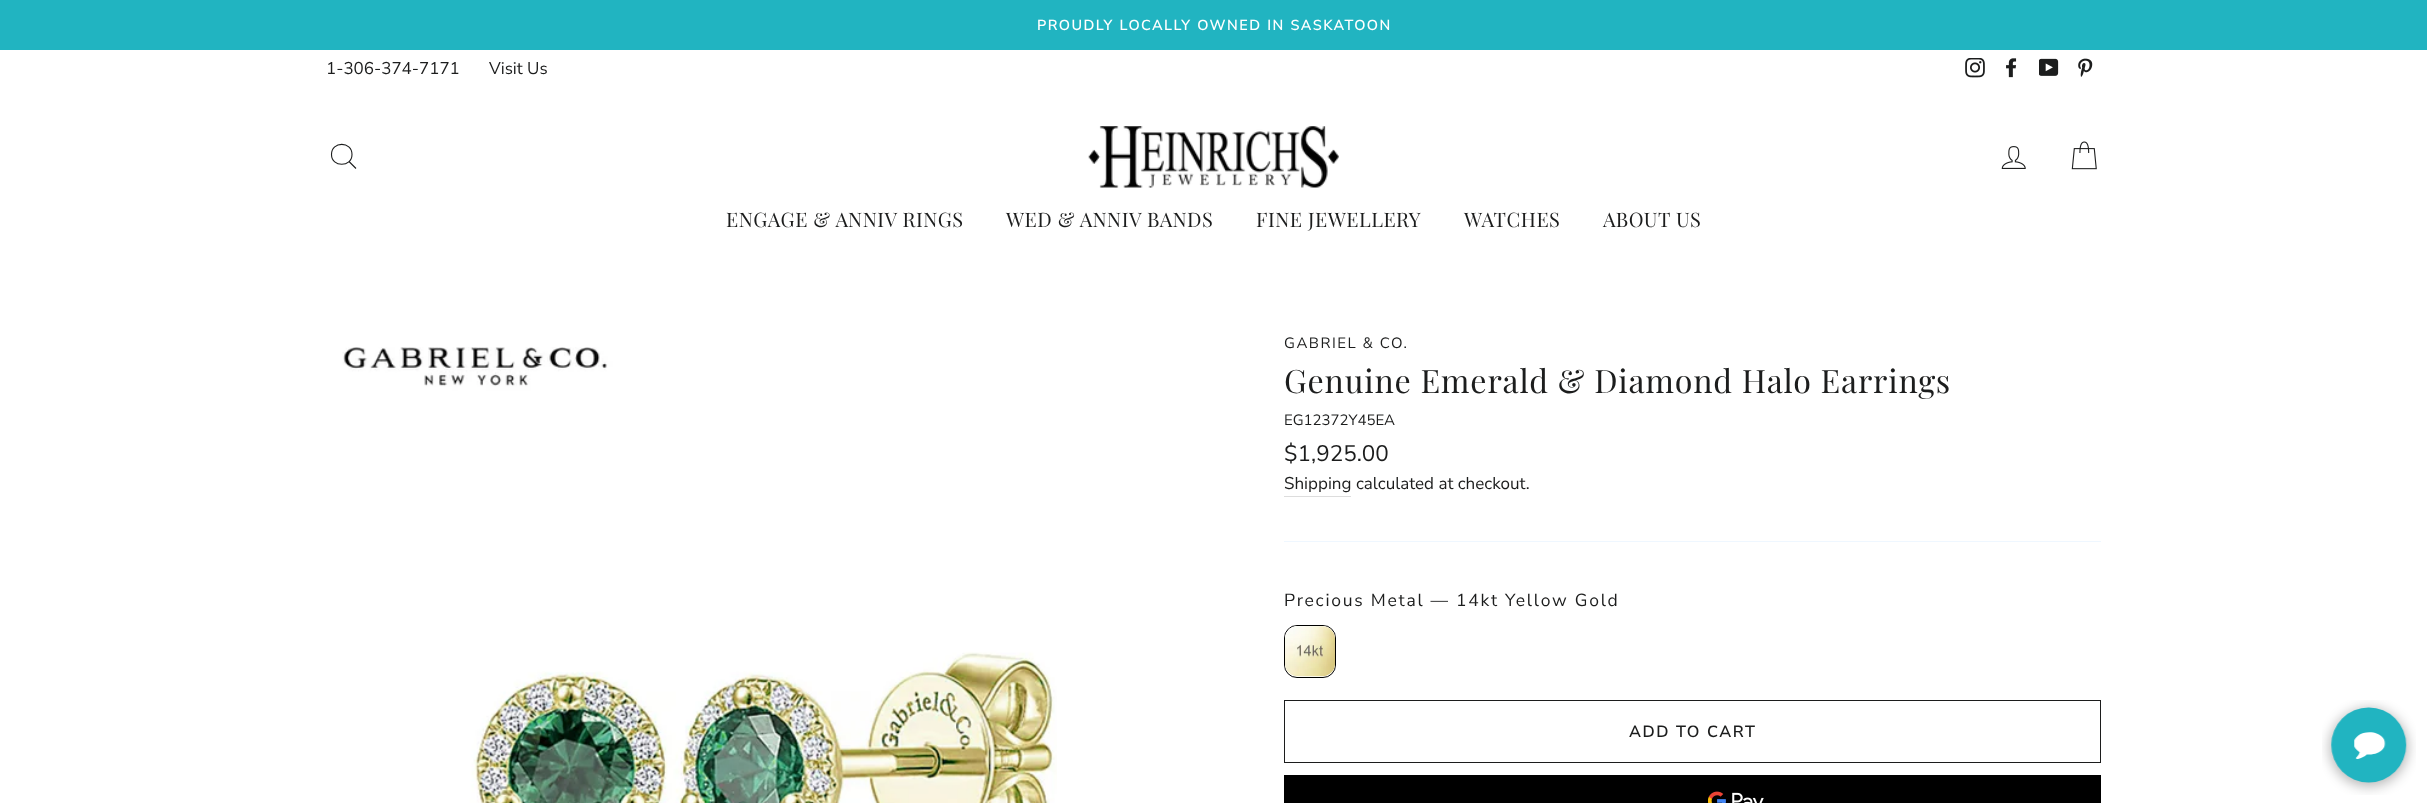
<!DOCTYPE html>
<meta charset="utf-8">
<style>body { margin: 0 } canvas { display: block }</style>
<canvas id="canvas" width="2427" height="803"></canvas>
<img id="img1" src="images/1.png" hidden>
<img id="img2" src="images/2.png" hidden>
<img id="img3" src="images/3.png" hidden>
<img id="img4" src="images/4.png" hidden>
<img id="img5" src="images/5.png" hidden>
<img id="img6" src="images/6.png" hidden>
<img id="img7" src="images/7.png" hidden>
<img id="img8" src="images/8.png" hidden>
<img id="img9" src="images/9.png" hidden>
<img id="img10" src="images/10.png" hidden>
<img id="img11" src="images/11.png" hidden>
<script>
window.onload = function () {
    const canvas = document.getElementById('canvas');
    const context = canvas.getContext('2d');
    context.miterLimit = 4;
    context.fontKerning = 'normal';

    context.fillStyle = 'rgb(255, 255, 255)';
    context.fillRect(0, 0, 2427, 803);
    context.fillStyle = 'rgb(33, 180, 193)';
    context.fillRect(0, 0, 2427, 50);
    context.drawImage(document.getElementById('img1'), 1965, 58, 20, 20);
    context.drawImage(document.getElementById('img2'), 2006, 58, 11, 20);
    context.drawImage(document.getElementById('img3'), 2039, 58, 20, 18);
    context.drawImage(document.getElementById('img4'), 2078, 58, 15, 19);
    context.fillStyle = 'rgba(0, 0, 0, 0.2)';
    context.filter = 'blur(0.5px)';
    context.beginPath();
    context.rect(0, 89, 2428, 175);
    context.fill();
    context.filter = 'none';
    context.fillStyle = 'rgb(255, 255, 255)';
    context.fillRect(0, 89, 2427, 175);
    context.beginPath();
    context.moveTo(352, 154.5);
    context.bezierCurveTo(352, 167.5, 331.5, 167.5, 331.5, 154.5);
    context.bezierCurveTo(331.5, 141, 352, 141, 352, 154.5);
    context.closePath();
    context.moveTo(356, 168.5);
    context.lineTo(349, 161.5);
    context.strokeStyle = 'rgb(28, 29, 29)';
    context.lineWidth = 1.1;
    context.stroke();
    context.drawImage(document.getElementById('img5'), 1088, 126, 251, 62);
    context.drawImage(document.getElementById('img6'), 2001, 146, 25, 23);
    context.drawImage(document.getElementById('img7'), 2071, 141, 26, 29);
    context.drawImage(document.getElementById('img8'), 342, 347, 715, 456);
    context.fillStyle = 'rgb(221, 221, 221)';
    context.fillRect(1284, 496, 67, 1);
    context.fillStyle = 'rgb(239, 247, 255)';
    context.fillRect(1284, 541, 817, 1);
    context.beginPath();
    context.roundRect(1284.5, 625.5, 51, 52, 12.5);
    context.strokeStyle = 'rgb(0, 0, 0)';
    context.lineWidth = 1;
    context.stroke();
    context.fillStyle = 'rgb(255, 255, 255)';
    context.beginPath();
    context.roundRect(1285, 626, 50, 50, 13);
    context.fill();
    context.drawImage(document.getElementById('img9'), 1285, 626, 50, 51);
    context.strokeStyle = 'rgb(28, 29, 29)';
    context.strokeRect(1284.5, 700.5, 816, 62);
    context.fillStyle = 'rgb(0, 0, 0)';
    context.fillRect(1284, 775, 817, 28);
    context.drawImage(document.getElementById('img10'), 1708, 791, 56, 12);
    context.drawImage(document.getElementById('img11'), 2322, 700, 94, 95);
    context.letterSpacing = '1.45px';
    context.wordSpacing = '0.5px';
    context.font = '600 14.45px Nunito Sans';
    context.fillStyle = 'rgb(255, 255, 255)';
    context.fillText('PROUDLY LOCALLY OWNED IN SASKATOON', 1037, 30);
    context.letterSpacing = '0px';
    context.wordSpacing = '0px';
    context.font = '17px Nunito Sans';
    context.fillStyle = 'rgb(28, 29, 29)';
    context.fillText('1-306-374-7171', 326, 74);
    context.fillText('Visit Us', 489, 74);
    context.letterSpacing = '0.5px';
    context.font = '20px Playfair Display';
    context.fillText('ENGAGE & ANNIV RINGS', 726, 227);
    context.fillText('WED & ANNIV BANDS', 1006, 227);
    context.fillText('FINE JEWELLERY', 1256, 227);
    context.fillText('WATCHES', 1464, 227);
    context.fillText('ABOUT US', 1603, 227);
    context.letterSpacing = '1.5px';
    context.font = '15px Nunito Sans';
    context.fillText('GABRIEL & CO.', 1284, 348);
    context.letterSpacing = '0.8px';
    context.font = '32.25px Playfair Display';
    context.fillText('Genuine Emerald & Diamond Halo Earrings', 1284, 393);
    context.letterSpacing = '0px';
    context.font = '15px Nunito Sans';
    context.fillText('EG12372Y45EA', 1284, 425);
    context.font = '22.5px Nunito Sans';
    context.fillText('$1,925.00', 1284, 461);
    context.font = '17px Nunito Sans';
    context.fillText('Shipping', 1284, 489);
    context.fillText('calculated at checkout.', 1356, 489);
    context.letterSpacing = '1.75px';
    context.font = '17.5px Nunito Sans';
    context.fillText('Precious Metal — 14kt Yellow Gold', 1284, 606);
    context.letterSpacing = '1.6px';
    context.font = '600 16.25px Nunito Sans';
    context.fillText('ADD TO CART', 1629, 737);
};
</script>
